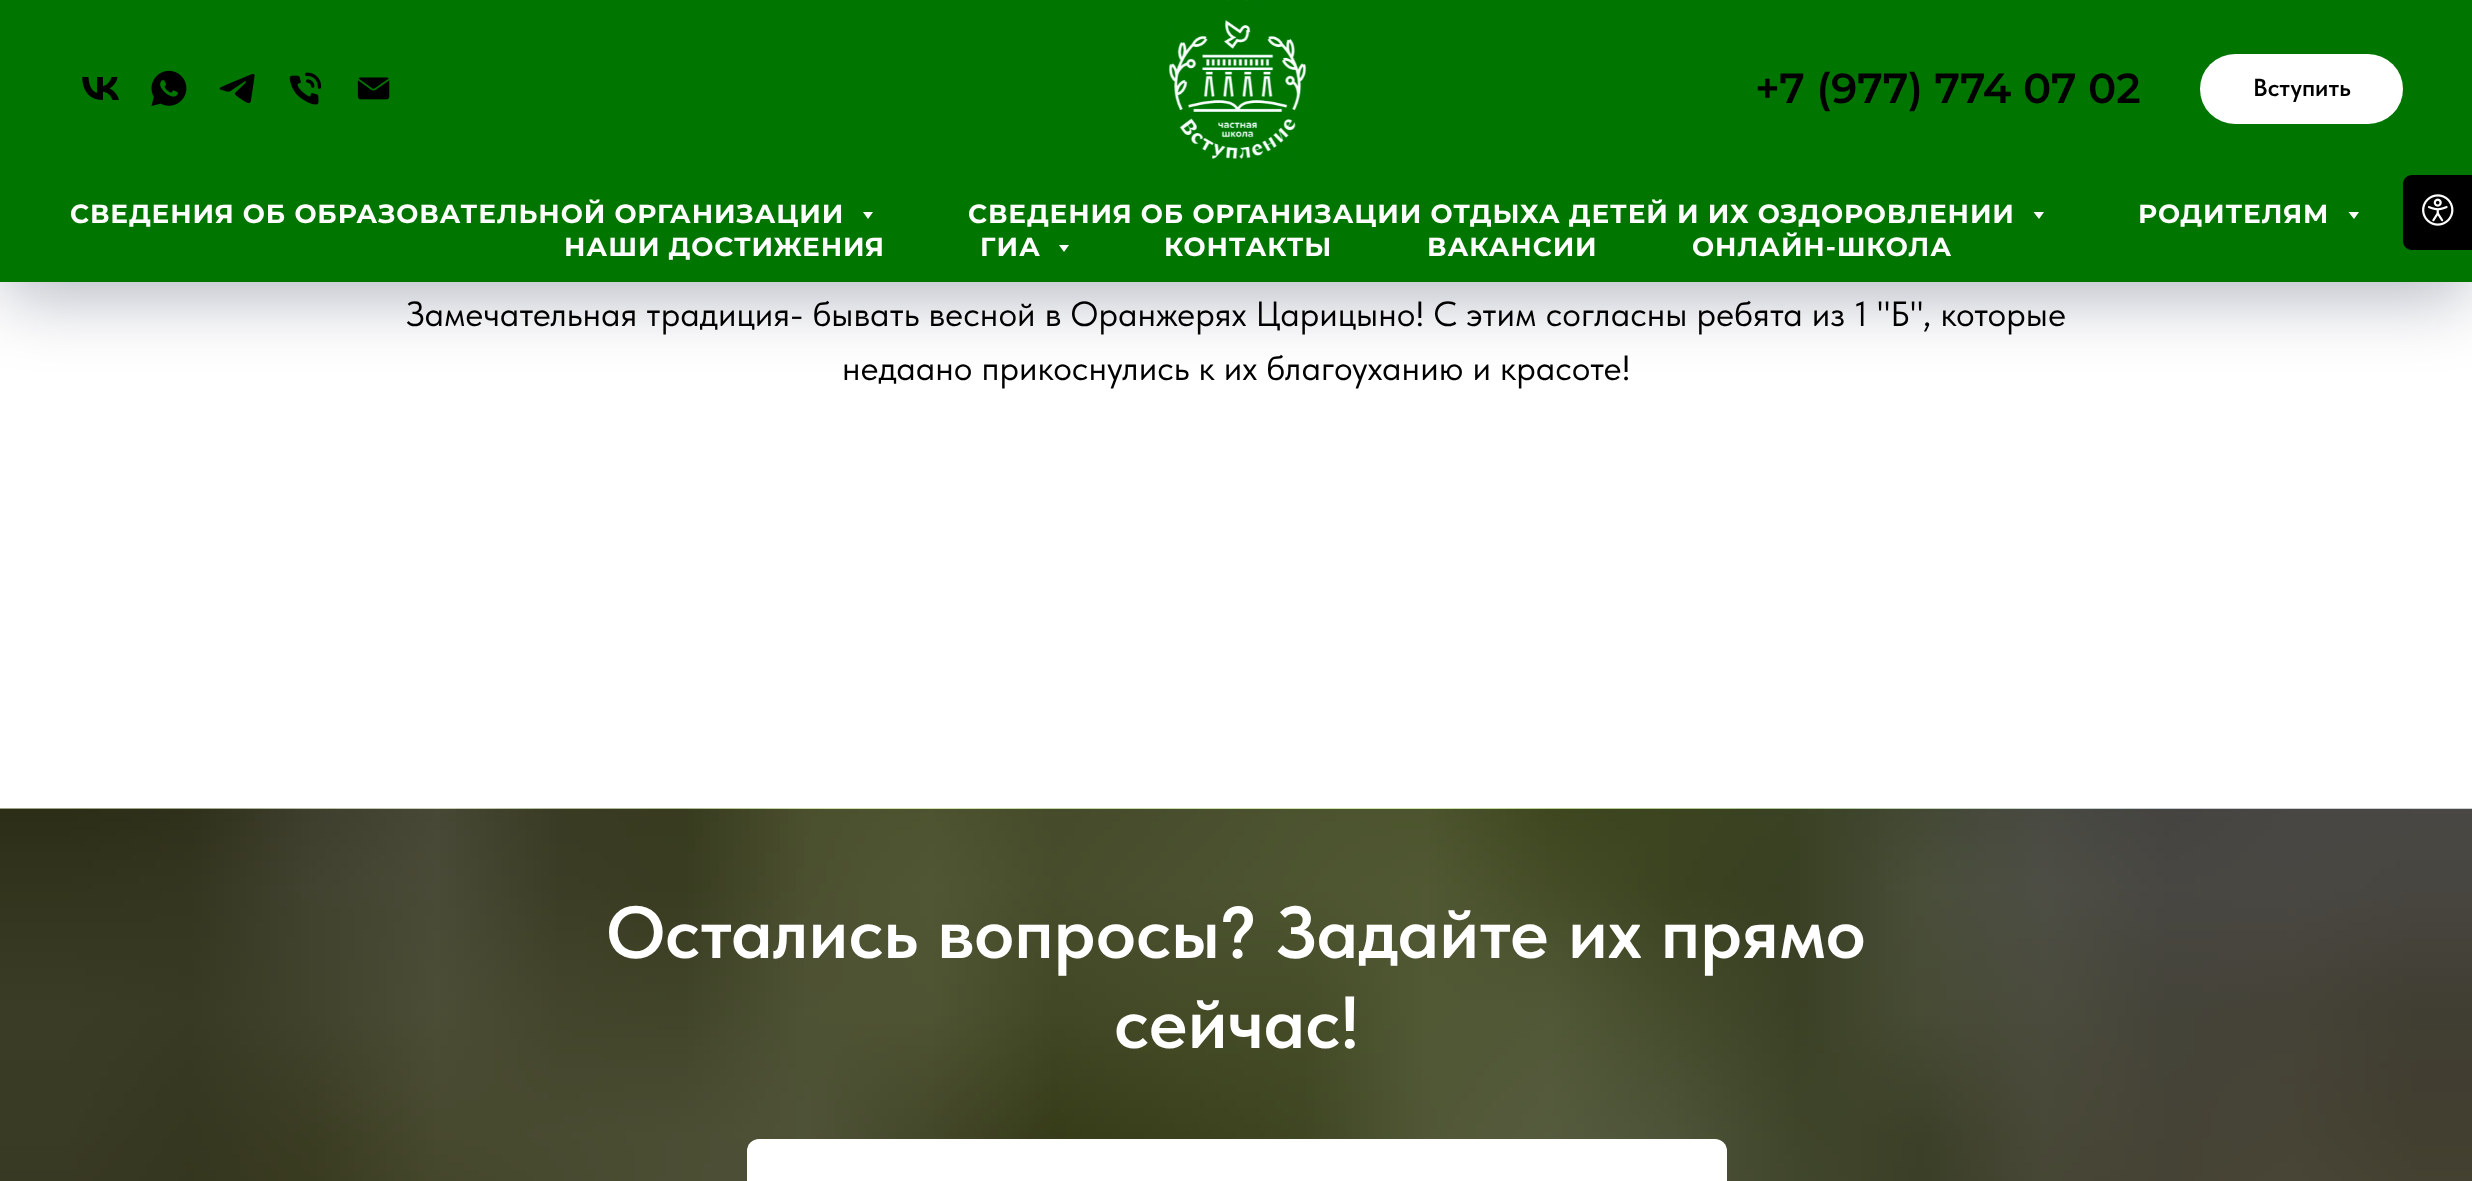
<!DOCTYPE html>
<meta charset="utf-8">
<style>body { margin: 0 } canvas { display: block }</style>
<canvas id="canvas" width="2472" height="1181"></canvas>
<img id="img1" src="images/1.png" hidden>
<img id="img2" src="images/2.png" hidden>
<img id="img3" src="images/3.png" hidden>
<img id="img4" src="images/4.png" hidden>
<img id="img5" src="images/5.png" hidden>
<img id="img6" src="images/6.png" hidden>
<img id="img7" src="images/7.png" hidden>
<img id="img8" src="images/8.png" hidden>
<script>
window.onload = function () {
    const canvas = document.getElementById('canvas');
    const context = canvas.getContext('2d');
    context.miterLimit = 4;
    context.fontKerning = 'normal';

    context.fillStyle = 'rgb(255, 255, 255)';
    context.fillRect(0, 0, 2472, 1181);
    context.fillStyle = 'rgba(0, 11, 48, 0.3)';
    context.filter = 'blur(35px)';
    context.beginPath();
    context.rect(4, 21, 2465, 275);
    context.fill();
    context.filter = 'none';
    context.fillStyle = 'rgb(0, 117, 0)';
    context.fillRect(0, 0, 2472, 282);
    context.drawImage(document.getElementById('img1'), 1150, 0, 175, 175);
    context.drawImage(document.getElementById('img2'), 82, 77, 37, 23);
    context.drawImage(document.getElementById('img3'), 151, 70, 36, 36);
    context.drawImage(document.getElementById('img4'), 219, 74, 36, 30);
    context.drawImage(document.getElementById('img5'), 289, 72, 33, 33);
    context.drawImage(document.getElementById('img6'), 357, 77, 33, 23);
    context.fillStyle = 'rgb(255, 255, 255)';
    context.beginPath();
    context.roundRect(2200, 54, 203, 70, 35);
    context.fill();
    context.beginPath();
    context.moveTo(863, 212);
    context.lineTo(873, 212);
    context.lineTo(868, 219);
    context.closePath();
    context.fill();
    context.beginPath();
    context.moveTo(2033.5, 212);
    context.lineTo(2044, 212);
    context.lineTo(2039, 219);
    context.closePath();
    context.fill();
    context.beginPath();
    context.moveTo(2348.5, 212);
    context.lineTo(2359, 212);
    context.lineTo(2354, 219);
    context.closePath();
    context.fill();
    context.beginPath();
    context.moveTo(1059, 245);
    context.lineTo(1069, 245);
    context.lineTo(1064, 252);
    context.closePath();
    context.fill();
    context.fillStyle = 'rgb(0, 0, 0)';
    context.beginPath();
    context.moveTo(2412, 175);
    context.lineTo(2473, 175);
    context.lineTo(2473, 250);
    context.lineTo(2412, 250);
    context.bezierCurveTo(2407, 250, 2403, 246, 2403, 241);
    context.lineTo(2403, 184);
    context.bezierCurveTo(2403, 179, 2407, 175, 2412, 175);
    context.closePath();
    context.fill();
    context.drawImage(document.getElementById('img7'), 2422, 194, 32, 32);
    context.drawImage(document.getElementById('img8'), 0, 808, 2472, 373);
    context.fillStyle = 'rgb(255, 255, 255)';
    context.beginPath();
    context.roundRect(747, 1139, 980, 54, 12);
    context.fill();
    context.font = '600 42px Montserrat';
    context.fillStyle = 'rgb(0, 0, 0)';
    context.fillText('+7 (977) 774 07 02', 1755, 103);
    context.font = '600 24.5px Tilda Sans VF';
    context.fillText('Вступить', 2253, 96);
    context.letterSpacing = '0.88px';
    context.font = 'bold 26.25px Montserrat';
    context.fillStyle = 'rgb(255, 255, 255)';
    context.fillText('СВЕДЕНИЯ ОБ ОБРАЗОВАТЕЛЬНОЙ ОРГАНИЗАЦИИ', 70, 223);
    context.fillText('СВЕДЕНИЯ ОБ ОРГАНИЗАЦИИ ОТДЫХА ДЕТЕЙ И ИХ ОЗДОРОВЛЕНИИ', 968, 223);
    context.fillText('РОДИТЕЛЯМ', 2138, 223);
    context.fillText('НАШИ ДОСТИЖЕНИЯ', 564, 256);
    context.fillText('ГИА', 980, 256);
    context.fillText('КОНТАКТЫ', 1164, 256);
    context.fillText('ВАКАНСИИ', 1427, 256);
    context.fillText('ОНЛАЙН-ШКОЛА', 1692, 256);
    context.letterSpacing = '0px';
    context.font = '35px Tilda Sans VF';
    context.fillStyle = 'rgb(0, 0, 0)';
    context.fillText('Замечательная традиция- бывать весной в Оранжерях Царицыно! С этим согласны ребята из 1 "Б", которые', 406, 326);
    context.fillText('недаано прикоснулись к их благоуханию и красоте!', 842, 380);
    context.font = '600 73.5px Tilda Sans VF';
    context.fillStyle = 'rgb(255, 255, 255)';
    context.fillText('Остались вопросы? Задайте их прямо', 606, 958);
    context.fillText('сейчас!', 1114, 1048);
};
</script>
